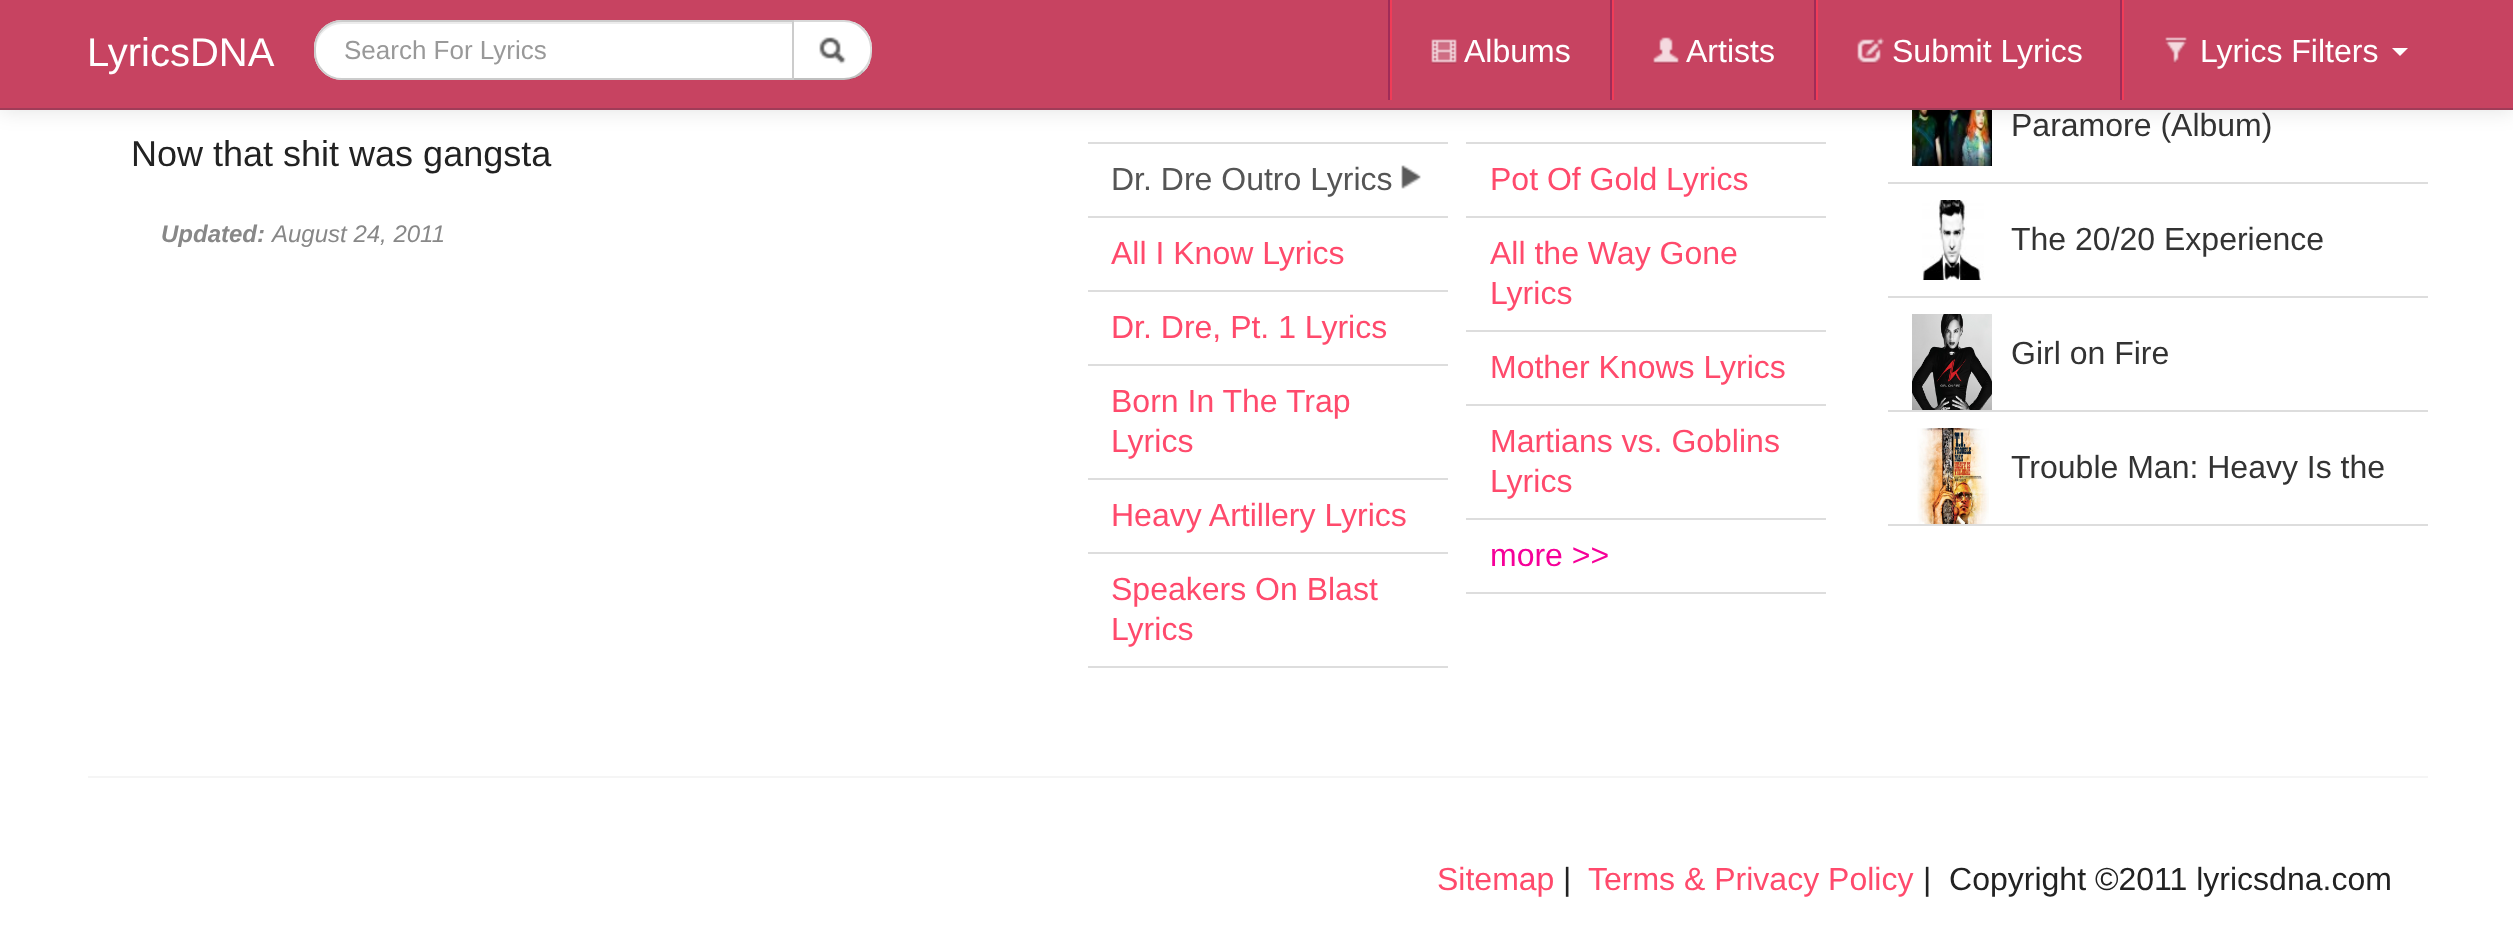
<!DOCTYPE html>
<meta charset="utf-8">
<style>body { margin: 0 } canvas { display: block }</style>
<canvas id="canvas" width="2513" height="932"></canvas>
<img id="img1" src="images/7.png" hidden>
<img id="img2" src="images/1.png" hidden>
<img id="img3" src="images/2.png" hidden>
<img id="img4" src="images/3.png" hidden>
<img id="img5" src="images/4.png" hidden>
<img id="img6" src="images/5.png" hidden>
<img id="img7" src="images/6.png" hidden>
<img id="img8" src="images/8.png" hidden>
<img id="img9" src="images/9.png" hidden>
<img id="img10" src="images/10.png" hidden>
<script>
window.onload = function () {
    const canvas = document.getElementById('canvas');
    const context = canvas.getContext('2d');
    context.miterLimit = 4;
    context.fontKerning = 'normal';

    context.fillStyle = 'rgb(255, 255, 255)';
    context.fillRect(0, 0, 2513, 932);
    context.fillStyle = 'rgb(221, 221, 221)';
    context.fillRect(1088, 142, 360, 2);
    context.fillRect(1466, 142, 360, 2);
    context.drawImage(document.getElementById('img1'), 1912, 110, 80, 56);
    context.fillStyle = 'rgba(0, 0, 0, 0.1)';
    context.filter = 'blur(10px)';
    context.beginPath();
    context.rect(0, 2, 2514, 110);
    context.fill();
    context.filter = 'none';
    context.fillStyle = 'rgb(199, 67, 97)';
    context.fillRect(0, 0, 2513, 108);
    context.fillStyle = 'rgb(160, 60, 88)';
    context.fillRect(0, 108, 2513, 2);
    context.fillStyle = 'rgb(255, 255, 255)';
    context.beginPath();
    context.roundRect(792, 20, 80, 60, [0, 28, 28, 0]);
    context.fill();
    context.save();
    context.beginPath();
    context.roundRect(792, 20, 80, 60, [0, 28, 28, 0]);
    context.clip();
    context.fillRect(794, 22, 76, 56);
    context.restore();
    context.fillStyle = 'rgba(0, 0, 0, 0.15)';
    context.beginPath();
    context.moveTo(792, 20);
    context.lineTo(794, 22);
    context.lineTo(844, 22);
    context.bezierCurveTo(851, 22, 858, 25, 862, 30);
    context.lineTo(864, 28);
    context.bezierCurveTo(858, 23, 852, 20, 844, 20);
    context.closePath();
    context.fill();
    context.beginPath();
    context.moveTo(872, 52);
    context.bezierCurveTo(872, 43, 870, 35, 864, 28);
    context.lineTo(862, 30);
    context.bezierCurveTo(873, 40, 873, 60, 862, 70);
    context.lineTo(864, 72);
    context.bezierCurveTo(869, 66, 872, 60, 872, 52);
    context.closePath();
    context.fill();
    context.fillStyle = 'rgba(0, 0, 0, 0.25)';
    context.beginPath();
    context.moveTo(844, 80);
    context.bezierCurveTo(852, 80, 858, 77, 864, 72);
    context.lineTo(862, 70);
    context.bezierCurveTo(858, 75, 851, 78, 844, 78);
    context.lineTo(794, 78);
    context.lineTo(792, 80);
    context.closePath();
    context.fill();
    context.fillStyle = 'rgb(255, 255, 255)';
    context.beginPath();
    context.roundRect(314, 20, 480, 60, [28, 0, 0, 28]);
    context.fill();
    context.fillStyle = 'rgb(236, 236, 236)';
    context.beginPath();
    context.moveTo(342, 24);
    context.lineTo(792, 24);
    context.lineTo(792, 22);
    context.lineTo(342, 22);
    context.bezierCurveTo(328, 22, 316, 34, 316, 48);
    context.lineTo(316, 50);
    context.bezierCurveTo(316, 36, 328, 24, 342, 24);
    context.closePath();
    context.fill();
    context.beginPath();
    context.roundRect(315, 21, 478, 58, [27, 0, 0, 27]);
    context.strokeStyle = 'rgb(204, 204, 204)';
    context.lineWidth = 2;
    context.stroke();
    context.drawImage(document.getElementById('img2'), 819, 37, 27, 27);
    context.fillStyle = 'rgb(240, 60, 88)';
    context.fillRect(1390, 0, 2, 100);
    context.fillStyle = 'rgb(160, 44, 88)';
    context.fillRect(1388, 0, 2, 100);
    context.drawImage(document.getElementById('img3'), 1431, 39, 26, 25);
    context.fillStyle = 'rgb(240, 60, 88)';
    context.fillRect(1612, 0, 2, 100);
    context.fillStyle = 'rgb(160, 44, 88)';
    context.fillRect(1610, 0, 2, 100);
    context.drawImage(document.getElementById('img4'), 1653, 37, 26, 27);
    context.fillStyle = 'rgb(240, 60, 88)';
    context.fillRect(1816, 0, 2, 100);
    context.fillStyle = 'rgb(160, 44, 88)';
    context.fillRect(1814, 0, 2, 100);
    context.drawImage(document.getElementById('img5'), 1857, 37, 27, 27);
    context.fillStyle = 'rgb(240, 60, 88)';
    context.fillRect(2122, 0, 2, 100);
    context.fillStyle = 'rgb(160, 44, 88)';
    context.fillRect(2120, 0, 2, 100);
    context.drawImage(document.getElementById('img6'), 2165, 37, 22, 27);
    context.fillStyle = 'rgb(255, 255, 255)';
    context.beginPath();
    context.moveTo(2392, 48);
    context.lineTo(2408, 48);
    context.lineTo(2400, 56);
    context.closePath();
    context.fill();
    context.fillStyle = 'rgb(221, 221, 221)';
    context.fillRect(1088, 216, 360, 2);
    context.drawImage(document.getElementById('img7'), 1401, 165, 20, 24);
    context.fillRect(1088, 290, 360, 2);
    context.fillRect(1088, 364, 360, 2);
    context.fillRect(1088, 478, 360, 2);
    context.fillRect(1088, 552, 360, 2);
    context.fillRect(1088, 666, 360, 2);
    context.fillRect(1466, 216, 360, 2);
    context.fillRect(1466, 330, 360, 2);
    context.fillRect(1466, 404, 360, 2);
    context.fillRect(1466, 518, 360, 2);
    context.fillRect(1466, 592, 360, 2);
    context.fillRect(1888, 182, 540, 2);
    context.fillRect(1888, 296, 540, 2);
    context.drawImage(document.getElementById('img8'), 1922, 200, 62, 80);
    context.fillRect(1888, 410, 540, 2);
    context.drawImage(document.getElementById('img9'), 1912, 314, 80, 96);
    context.fillRect(1888, 524, 540, 2);
    context.drawImage(document.getElementById('img10'), 1917, 428, 72, 96);
    context.fillStyle = 'rgb(245, 245, 245)';
    context.fillRect(88, 776, 2340, 2);
    context.font = '40px Liberation Sans';
    context.fillStyle = 'rgb(255, 255, 255)';
    context.fillText('LyricsDNA', 87, 66);
    context.font = '26px Liberation Sans';
    context.fillStyle = 'rgb(153, 153, 153)';
    context.fillText('Search For Lyrics', 344, 59);
    context.font = '32px Liberation Sans';
    context.fillStyle = 'rgb(255, 255, 255)';
    context.fillText('Albums', 1464, 62);
    context.fillText('Artists', 1686, 62);
    context.fillText('Submit Lyrics', 1892, 62);
    context.fillText('Lyrics Filters', 2200, 62);
    context.font = '36px Liberation Sans';
    context.fillStyle = 'rgb(34, 34, 34)';
    context.fillText('Now that shit was gangsta', 131, 166);
    context.font = 'italic bold 24px Liberation Sans';
    context.fillStyle = 'rgb(136, 136, 136)';
    context.fillText('Updated:', 161, 242);
    context.font = 'italic 24px Liberation Sans';
    context.fillText('August 24, 2011', 272, 242);
    context.font = '32px Liberation Sans';
    context.fillStyle = 'rgb(85, 85, 85)';
    context.fillText('Dr. Dre Outro Lyrics', 1111, 190);
    context.fillStyle = 'rgb(255, 74, 108)';
    context.fillText('All I Know Lyrics', 1111, 264);
    context.fillText('Dr. Dre, Pt. 1 Lyrics', 1111, 338);
    context.fillText('Born In The Trap', 1111, 412);
    context.fillText('Lyrics', 1111, 452);
    context.fillText('Heavy Artillery Lyrics', 1111, 526);
    context.fillText('Speakers On Blast', 1111, 600);
    context.fillText('Lyrics', 1111, 640);
    context.fillText('Pot Of Gold Lyrics', 1490, 190);
    context.fillText('All the Way Gone', 1490, 264);
    context.fillText('Lyrics', 1490, 304);
    context.fillText('Mother Knows Lyrics', 1490, 378);
    context.fillText('Martians vs. Goblins', 1490, 452);
    context.fillText('Lyrics', 1490, 492);
    context.fillStyle = 'rgb(246, 0, 153)';
    context.fillText('more >>', 1490, 566);
    context.fillStyle = 'rgb(51, 51, 51)';
    context.fillText('Paramore (Album)', 2011, 136);
    context.fillText('The 20/20 Experience', 2011, 250);
    context.fillText('Girl on Fire', 2011, 364);
    context.fillText('Trouble Man: Heavy Is the', 2011, 478);
    context.fillStyle = 'rgb(255, 74, 108)';
    context.fillText('Sitemap', 1437, 890);
    context.fillStyle = 'rgb(34, 34, 34)';
    context.fillText('|', 1563, 890);
    context.fillStyle = 'rgb(255, 74, 108)';
    context.fillText('Terms & Privacy Policy', 1588, 890);
    context.fillStyle = 'rgb(34, 34, 34)';
    context.fillText('|  Copyright ©2011 lyricsdna.com', 1923, 890);
};
</script>
